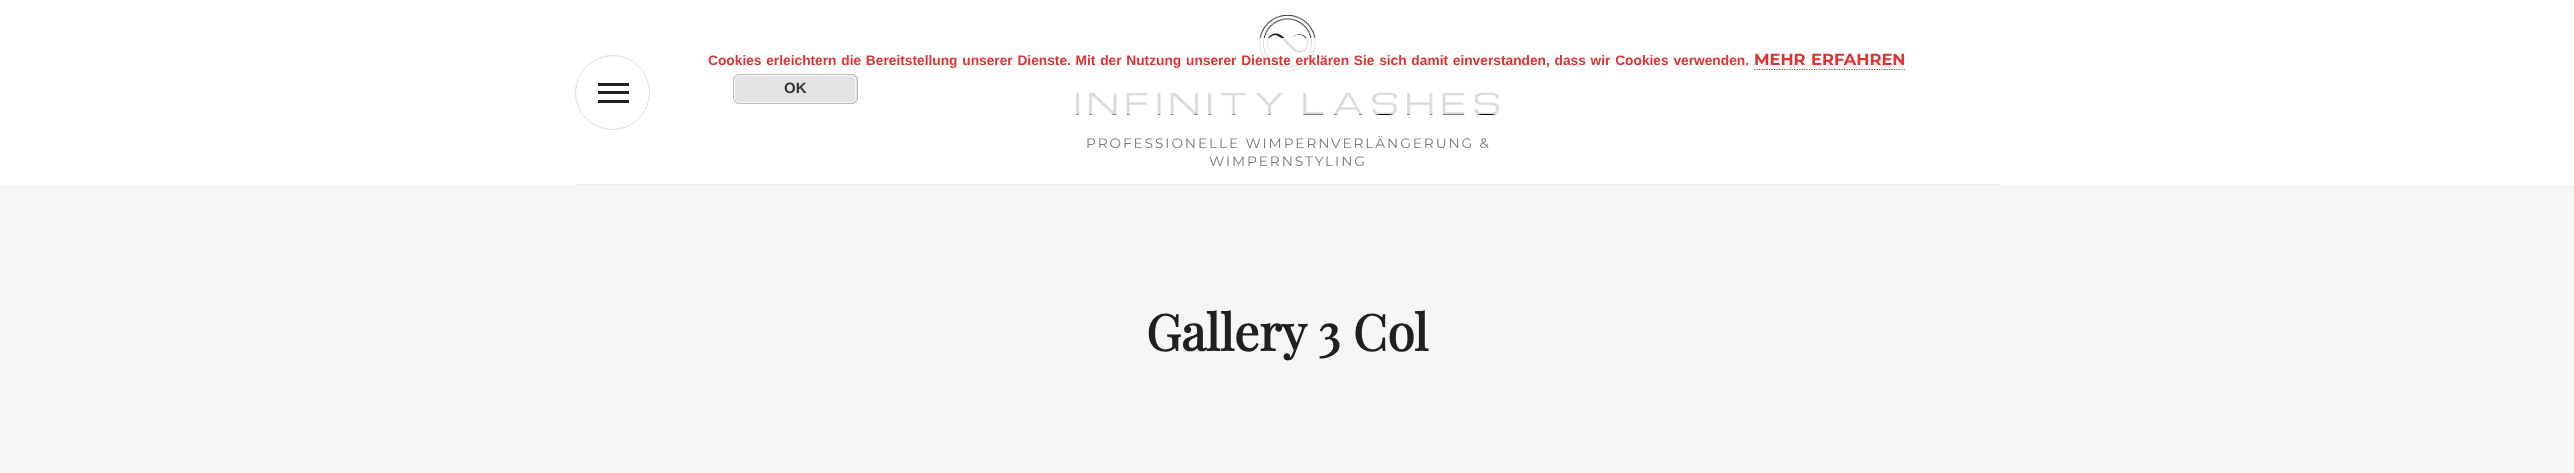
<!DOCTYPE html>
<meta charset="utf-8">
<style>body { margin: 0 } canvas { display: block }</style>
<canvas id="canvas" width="2574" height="473"></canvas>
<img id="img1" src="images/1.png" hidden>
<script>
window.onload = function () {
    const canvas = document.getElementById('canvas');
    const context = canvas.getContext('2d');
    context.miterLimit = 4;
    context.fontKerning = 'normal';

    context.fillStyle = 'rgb(255, 255, 255)';
    context.fillRect(0, 0, 2574, 473);
    context.drawImage(document.getElementById('img1'), 1076, 15, 423, 100);
    context.fillStyle = 'rgba(255, 255, 255, 0.85)';
    context.beginPath();
    context.roundRect(681, 38, 1250, 76, 6);
    context.fill();
    context.beginPath();
    context.moveTo(1754, 69.5);
    context.lineTo(1905, 69.5);
    context.strokeStyle = 'rgb(221, 51, 51)';
    context.lineWidth = 1.2;
    context.setLineDash([1.25, 1.25]);
    context.stroke();
    context.fillStyle = 'rgb(227, 227, 227)';
    context.beginPath();
    context.roundRect(733, 74, 125, 30, 6);
    context.fill();
    context.beginPath();
    context.roundRect(734.5, 75.5, 121, 27, 4.5);
    context.strokeStyle = 'rgb(246, 246, 246)';
    context.lineWidth = 1;
    context.setLineDash([]);
    context.stroke();
    context.beginPath();
    context.roundRect(733.5, 74.5, 124, 29, 5.5);
    context.strokeStyle = 'rgb(187, 187, 187)';
    context.stroke();
    context.fillStyle = 'rgb(238, 238, 238)';
    context.fillRect(575, 184, 1425, 1);
    context.beginPath();
    context.arc(612.5, 92.5, 37, 0, 2 * Math.PI);
    context.strokeStyle = 'rgb(221, 221, 221)';
    context.stroke();
    context.fillStyle = 'rgb(32, 32, 32)';
    context.fillRect(598, 83, 31, 3);
    context.fillRect(598, 91, 31, 3);
    context.fillRect(598, 100, 31, 3);
    context.fillStyle = 'rgb(246, 246, 246)';
    context.fillRect(0, 185, 2574, 288);
    context.wordSpacing = '0.9px';
    context.font = 'bold 13.75px Liberation Sans';
    context.fillStyle = 'rgb(221, 51, 51)';
    context.fillText('Cookies erleichtern die Bereitstellung unserer Dienste. Mit der Nutzung unserer Dienste erklären Sie sich damit einverstanden, dass wir Cookies verwenden.', 708, 65);
    context.wordSpacing = '1px';
    context.font = 'bold 16.25px Montserrat';
    context.fillText('MEHR ERFAHREN', 1754, 65);
    context.wordSpacing = '0px';
    context.font = 'bold 15px Liberation Sans';
    context.fillStyle = 'rgb(51, 51, 51)';
    context.fillText('OK', 784, 93);
    context.letterSpacing = '1.9px';
    context.font = '13.75px Montserrat';
    context.fillStyle = 'rgb(119, 119, 119)';
    context.fillText('PROFESSIONELLE WIMPERNVERLÄNGERUNG &', 1086, 148);
    context.fillText('WIMPERNSTYLING', 1209, 166);
    context.letterSpacing = '0px';
    context.font = 'bold 50px Playfair Display';
    context.fillStyle = 'rgb(32, 32, 32)';
    context.fillText('Gallery 3 Col', 1146, 351);
};
</script>
